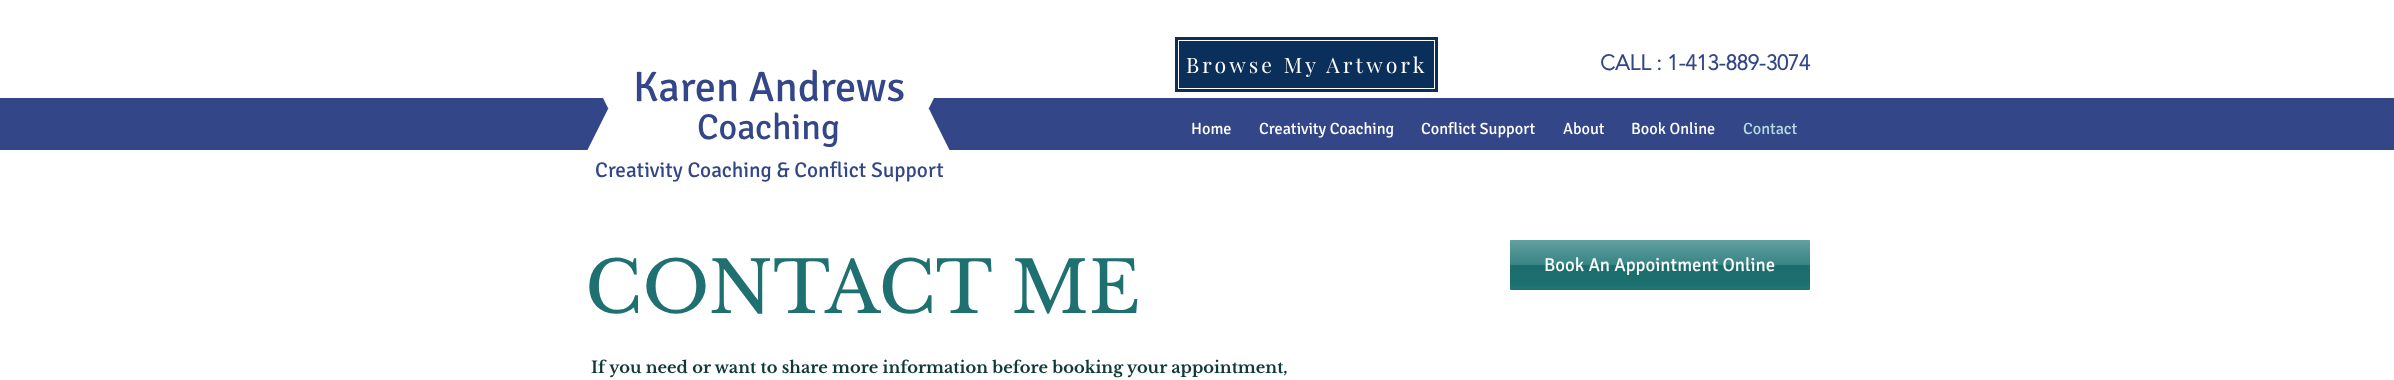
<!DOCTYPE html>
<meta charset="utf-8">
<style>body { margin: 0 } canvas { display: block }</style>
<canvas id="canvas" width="2394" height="380"></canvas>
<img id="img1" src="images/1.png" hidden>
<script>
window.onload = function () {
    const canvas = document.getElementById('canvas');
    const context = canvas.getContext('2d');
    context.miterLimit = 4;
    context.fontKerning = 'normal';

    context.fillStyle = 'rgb(255, 255, 255)';
    context.fillRect(0, 0, 2394, 380);
    context.fillStyle = 'rgb(51, 70, 136)';
    context.fillRect(0, 98, 2394, 52);
    context.save();
    context.beginPath();
    context.rect(585, 63, 185, 47);
    context.clip();
    context.fillStyle = 'rgb(255, 255, 255)';
    context.beginPath();
    context.moveTo(585, 62);
    context.lineTo(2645, 62);
    context.lineTo(1395, 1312);
    context.lineTo(1210, 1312);
    context.closePath();
    context.fill();
    context.restore();
    context.save();
    context.beginPath();
    context.rect(769, 63, 184, 47);
    context.clip();
    context.fillStyle = 'rgb(255, 255, 255)';
    context.beginPath();
    context.moveTo(-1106, 62);
    context.lineTo(952, 62);
    context.lineTo(328, 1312);
    context.lineTo(144, 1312);
    context.closePath();
    context.fill();
    context.restore();
    context.save();
    context.beginPath();
    context.rect(585, 109, 185, 46);
    context.clip();
    context.fillStyle = 'rgb(255, 255, 255)';
    context.beginPath();
    context.moveTo(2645, 155);
    context.lineTo(585, 155);
    context.lineTo(1210, -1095);
    context.lineTo(1395, -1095);
    context.closePath();
    context.fill();
    context.restore();
    context.save();
    context.beginPath();
    context.rect(769, 109, 184, 46);
    context.clip();
    context.fillStyle = 'rgb(255, 255, 255)';
    context.beginPath();
    context.moveTo(952, 155);
    context.lineTo(-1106, 155);
    context.lineTo(144, -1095);
    context.lineTo(328, -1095);
    context.closePath();
    context.fill();
    context.restore();
    context.fillStyle = 'rgb(11, 47, 91)';
    context.fillRect(1175, 37, 263, 55);
    context.strokeStyle = 'rgb(255, 255, 255)';
    context.strokeRect(1178.5, 40.5, 256, 48);
    context.fillStyle = 'rgb(31, 117, 117)';
    context.beginPath();
    context.roundRect(1510, 240, 300, 50, 1);
    context.fill();
    context.drawImage(document.getElementById('img1'), 1510, 240, 300, 46);
    context.letterSpacing = '3.2px';
    context.font = '21.25px Playfair Display';
    context.fillStyle = 'rgb(255, 255, 255)';
    context.fillText('Browse My Artwork', 1186, 73);
    context.letterSpacing = '0px';
    context.font = 'bold 21.25px "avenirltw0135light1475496"';
    context.fillStyle = 'rgb(51, 70, 136)';
    context.fillText('CALL : 1-413-889-3074', 1600, 70);
    context.font = '42.5px Signika';
    context.fillText('Karen Andrews', 633, 101);
    context.font = '36px Signika';
    context.fillText('Coaching', 697, 139);
    context.font = '21.25px Signika';
    context.fillText('Creativity Coaching & Conflict Support', 595, 177);
    context.font = '16.25px Signika';
    context.fillStyle = 'rgb(255, 255, 255)';
    context.fillText('Home', 1191, 134);
    context.fillText('Creativity Coaching', 1259, 134);
    context.fillText('Conflict Support', 1421, 134);
    context.fillText('About', 1563, 134);
    context.fillText('Book Online', 1631, 134);
    context.fillStyle = 'rgb(180, 220, 220)';
    context.fillText('Contact', 1743, 134);
    context.font = '71.25px Libre Baskerville';
    context.fillStyle = 'rgb(31, 112, 112)';
    context.fillText('CONTACT ME', 585, 313);
    context.font = '18.75px Signika';
    context.fillStyle = 'rgb(255, 255, 255)';
    context.fillText('Book An Appointment Online', 1544, 271);
    context.font = 'bold 16.25px Libre Baskerville';
    context.fillStyle = 'rgb(15, 58, 58)';
    context.fillText('If you need or want to share more information before booking your appointment,', 591, 373);
};
</script>
